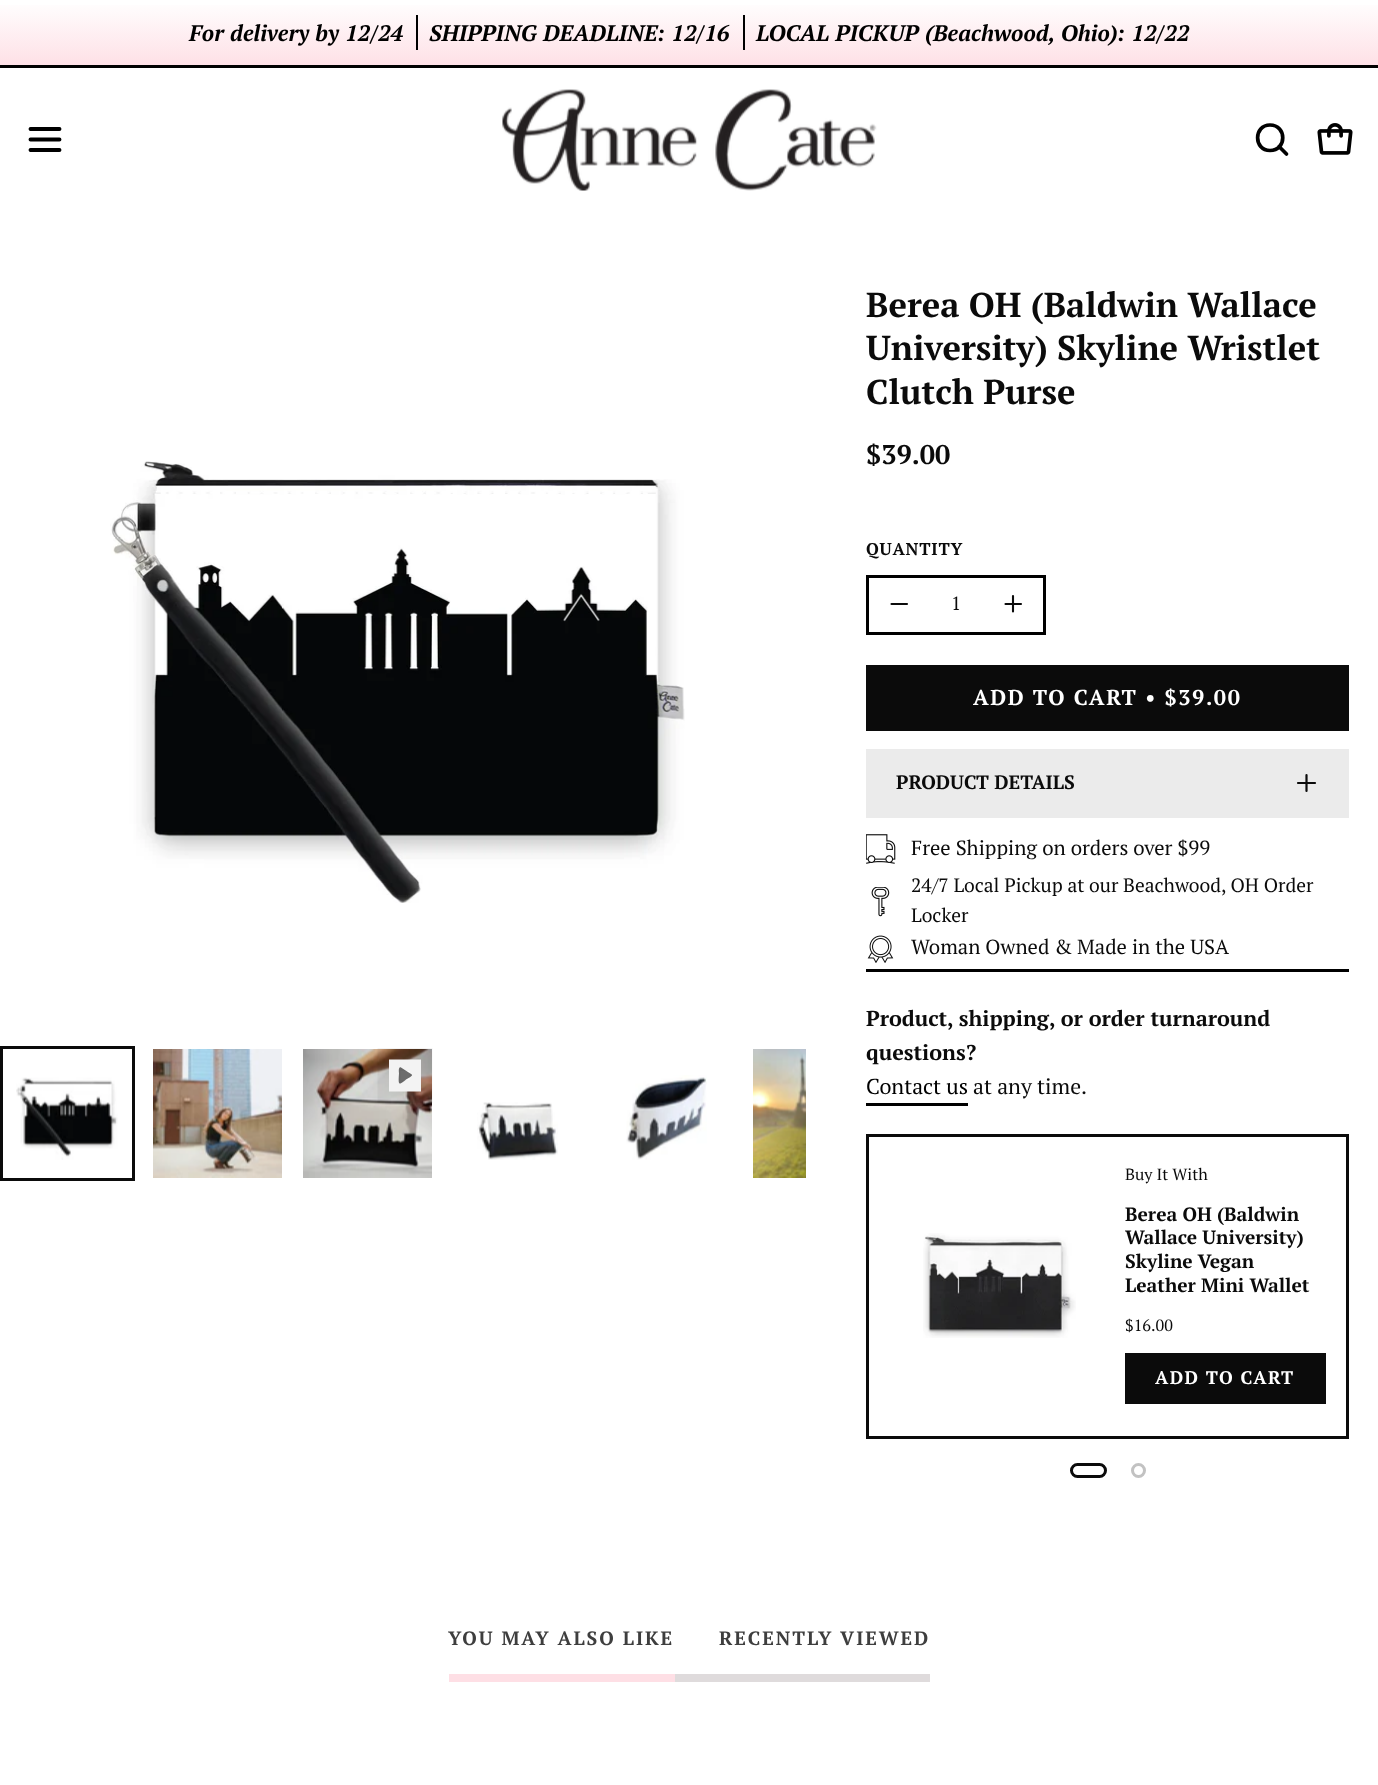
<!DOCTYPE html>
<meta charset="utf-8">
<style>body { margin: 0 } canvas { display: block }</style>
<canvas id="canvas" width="1378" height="1785"></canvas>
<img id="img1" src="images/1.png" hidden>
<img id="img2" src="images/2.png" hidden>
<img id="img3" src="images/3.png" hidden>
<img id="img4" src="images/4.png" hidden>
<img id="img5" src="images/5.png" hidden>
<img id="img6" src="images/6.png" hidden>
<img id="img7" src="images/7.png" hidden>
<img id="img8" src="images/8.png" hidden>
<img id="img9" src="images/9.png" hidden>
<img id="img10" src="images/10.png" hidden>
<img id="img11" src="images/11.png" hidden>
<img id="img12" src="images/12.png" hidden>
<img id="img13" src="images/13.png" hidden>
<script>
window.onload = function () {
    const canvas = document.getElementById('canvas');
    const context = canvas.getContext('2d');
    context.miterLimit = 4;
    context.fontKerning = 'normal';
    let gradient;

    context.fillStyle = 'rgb(255, 255, 255)';
    context.fillRect(0, 0, 1378, 1785);
    gradient = context.createLinearGradient(689, 68, 689, 0);
    gradient.addColorStop(0, 'rgb(254, 223, 229)');
    gradient.addColorStop(1, 'rgb(255, 255, 255)');
    context.fillStyle = gradient;
    context.fillRect(0, 5, 1378, 60);
    context.fillStyle = 'rgb(0, 0, 0)';
    context.fillRect(0, 65, 1378, 3);
    context.fillRect(416, 15, 2, 35);
    context.fillRect(743, 15, 2, 35);
    context.beginPath();
    context.moveTo(30.5, 139.5);
    context.lineTo(59.5, 139.5);
    context.moveTo(30.5, 129);
    context.lineTo(59.5, 129);
    context.moveTo(30.5, 150);
    context.lineTo(59.5, 150);
    context.strokeStyle = 'rgb(0, 0, 0)';
    context.lineWidth = 3.9;
    context.lineCap = 'round';
    context.lineJoin = 'round';
    context.stroke();
    context.drawImage(document.getElementById('img1'), 502, 89, 375, 102);
    context.beginPath();
    context.moveTo(1270, 150.5);
    context.bezierCurveTo(1287, 150.5, 1287, 125, 1270, 125);
    context.bezierCurveTo(1253.5, 125, 1253.5, 150.5, 1270, 150.5);
    context.closePath();
    context.moveTo(1279, 146.5);
    context.lineTo(1286.5, 154);
    context.lineWidth = 3.7;
    context.stroke();
    context.drawImage(document.getElementById('img2'), 1317, 123, 36, 32);
    context.drawImage(document.getElementById('img3'), 110, 461, 575, 442);
    context.strokeStyle = 'rgb(11, 11, 11)';
    context.lineWidth = 3;
    context.lineJoin = 'miter';
    context.strokeRect(1.5, 1047.5, 132, 132);
    context.drawImage(document.getElementById('img4'), 16, 1077, 102, 83);
    context.drawImage(document.getElementById('img5'), 153, 1049, 129, 129);
    context.drawImage(document.getElementById('img6'), 303, 1049, 129, 129);
    context.fillStyle = 'rgb(255, 255, 255)';
    context.beginPath();
    context.moveTo(389, 1090.5);
    context.lineTo(389, 1091.5);
    context.lineTo(421, 1091.5);
    context.lineTo(421, 1059.5);
    context.lineTo(389, 1059.5);
    context.closePath();
    context.fill();
    context.strokeStyle = 'rgba(11, 11, 11, 0.05)';
    context.lineWidth = 22.8;
    context.lineCap = 'butt';
    context.stroke();
    context.fillStyle = 'rgba(11, 11, 11, 0.6)';
    context.beginPath();
    context.moveTo(401, 1067.5);
    context.bezierCurveTo(398, 1066, 399, 1073, 399, 1073);
    context.bezierCurveTo(399, 1075, 398, 1082.5, 399.5, 1083.5);
    context.bezierCurveTo(401, 1084, 405, 1080.5, 406, 1079.5);
    context.lineTo(409.5, 1077.5);
    context.bezierCurveTo(413, 1075, 413, 1075, 409.5, 1073);
    context.closePath();
    context.fill('evenodd');
    context.drawImage(document.getElementById('img7'), 477, 1102, 81, 58);
    context.drawImage(document.getElementById('img8'), 626, 1075, 81, 85);
    context.drawImage(document.getElementById('img9'), 753, 1049, 53, 129);
    context.strokeStyle = 'rgb(0, 0, 0)';
    context.lineWidth = 3;
    context.strokeRect(867.5, 576.5, 177, 57);
    context.beginPath();
    context.moveTo(891.5, 604);
    context.lineTo(907, 604);
    context.strokeStyle = 'rgb(11, 11, 11)';
    context.lineWidth = 2.1;
    context.lineCap = 'round';
    context.lineJoin = 'round';
    context.stroke();
    context.beginPath();
    context.moveTo(1005.5, 604);
    context.lineTo(1021, 604);
    context.moveTo(1013, 596);
    context.lineTo(1013, 611.5);
    context.stroke();
    context.fillStyle = 'rgb(11, 11, 11)';
    context.fillRect(866, 665, 483, 66);
    context.fillStyle = 'rgb(235, 235, 235)';
    context.fillRect(866, 749, 483, 69);
    context.beginPath();
    context.moveTo(1298, 783);
    context.lineTo(1315, 783);
    context.moveTo(1306.5, 775);
    context.lineTo(1306.5, 791);
    context.lineWidth = 2.2;
    context.stroke();
    context.drawImage(document.getElementById('img10'), 866, 834, 30, 30);
    context.drawImage(document.getElementById('img11'), 871, 887, 19, 30);
    context.drawImage(document.getElementById('img12'), 867, 935, 27, 28);
    context.fillStyle = 'rgb(0, 0, 0)';
    context.fillRect(866, 969, 483, 3);
    context.fillRect(866, 1103, 102, 3);
    context.lineWidth = 3;
    context.lineJoin = 'miter';
    context.strokeRect(867.5, 1135.5, 480, 302);
    context.drawImage(document.getElementById('img13'), 923, 1233, 153, 105);
    context.fillStyle = 'rgb(11, 11, 11)';
    context.fillRect(1125, 1353, 201, 51);
    context.beginPath();
    context.roundRect(1071.5, 1464.5, 34, 12, 6);
    context.stroke();
    context.beginPath();
    context.arc(1138.5, 1470.5, 6, 0, 2 * Math.PI);
    context.strokeStyle = 'rgb(194, 194, 194)';
    context.stroke();
    context.fillStyle = 'rgb(223, 219, 220)';
    context.fillRect(675, 1674, 255, 8);
    context.fillStyle = 'rgb(254, 223, 229)';
    context.fillRect(449, 1674, 226, 8);
    context.font = 'italic bold 22.5px PT Serif';
    context.fillStyle = 'rgb(0, 0, 0)';
    context.fillText('For delivery by 12/24', 189, 41);
    context.fillText('SHIPPING DEADLINE: 12/16', 429, 41);
    context.fillText('LOCAL PICKUP (Beachwood, Ohio): 12/22', 756, 41);
    context.font = 'bold 34.5px PT Serif';
    context.fillStyle = 'rgb(11, 11, 11)';
    context.fillText('Berea OH (Baldwin Wallace', 866, 317);
    context.fillText('University) Skyline Wristlet', 866, 360);
    context.fillText('Clutch Purse', 866, 404);
    context.font = 'bold 27px PT Serif';
    context.fillText('$39.00', 866, 464);
    context.letterSpacing = '0.75px';
    context.font = 'bold 17px PT Serif';
    context.fillText('QUANTITY', 866, 555);
    context.letterSpacing = '0px';
    context.font = '19px PT Serif';
    context.fillText('1', 951, 610);
    context.letterSpacing = '1.6px';
    context.font = 'bold 21.6px PT Serif';
    context.fillStyle = 'rgb(255, 255, 255)';
    context.fillText('ADD TO CART • $39.00', 973, 705);
    context.letterSpacing = '0px';
    context.font = 'bold 19.4px PT Serif';
    context.fillStyle = 'rgb(11, 11, 11)';
    context.fillText('PRODUCT DETAILS', 896, 789);
    context.font = '20.5px PT Serif';
    context.fillText('Free Shipping on orders over $99', 911, 855);
    context.font = '19.4px PT Serif';
    context.fillText('24/7 Local Pickup at our Beachwood, OH Order', 911, 892);
    context.fillText('Locker', 911, 922);
    context.font = '20.5px PT Serif';
    context.fillText('Woman Owned & Made in the USA', 911, 954);
    context.font = 'bold 21.6px PT Serif';
    context.fillText('Product, shipping, or order turnaround', 866, 1026);
    context.fillText('questions?', 866, 1060);
    context.font = '21.6px PT Serif';
    context.fillStyle = 'rgb(0, 0, 0)';
    context.fillText('Contact us', 866, 1094);
    context.fillStyle = 'rgb(11, 11, 11)';
    context.fillText('at any time.', 973, 1094);
    context.font = '16.25px PT Serif';
    context.fillText('Buy It With', 1125, 1180);
    context.font = 'bold 19.25px PT Serif';
    context.fillText('Berea OH (Baldwin', 1125, 1221);
    context.fillText('Wallace University)', 1125, 1244);
    context.fillText('Skyline Vegan', 1125, 1268);
    context.fillText('Leather Mini Wallet', 1125, 1292);
    context.font = '16.25px PT Serif';
    context.fillText('$16.00', 1125, 1331);
    context.letterSpacing = '1.4px';
    context.font = 'bold 18.25px PT Serif';
    context.fillStyle = 'rgb(255, 255, 255)';
    context.fillText('ADD TO CART', 1155, 1384);
    context.fillStyle = 'rgb(11, 11, 11)';
    context.beginPath();
    context.moveTo(1213.5, 1379);
    context.lineTo(1215.5, 1377);
    context.lineTo(1224, 1385.5);
    context.lineTo(1222, 1387.5);
    context.closePath();
    context.fill();
    context.letterSpacing = '1.9px';
    context.font = 'bold 19.25px PT Serif';
    context.fillStyle = 'rgb(62, 62, 62)';
    context.fillText('YOU MAY ALSO LIKE', 448, 1645);
    context.fillText('RECENTLY VIEWED', 719, 1645);
};
</script>
